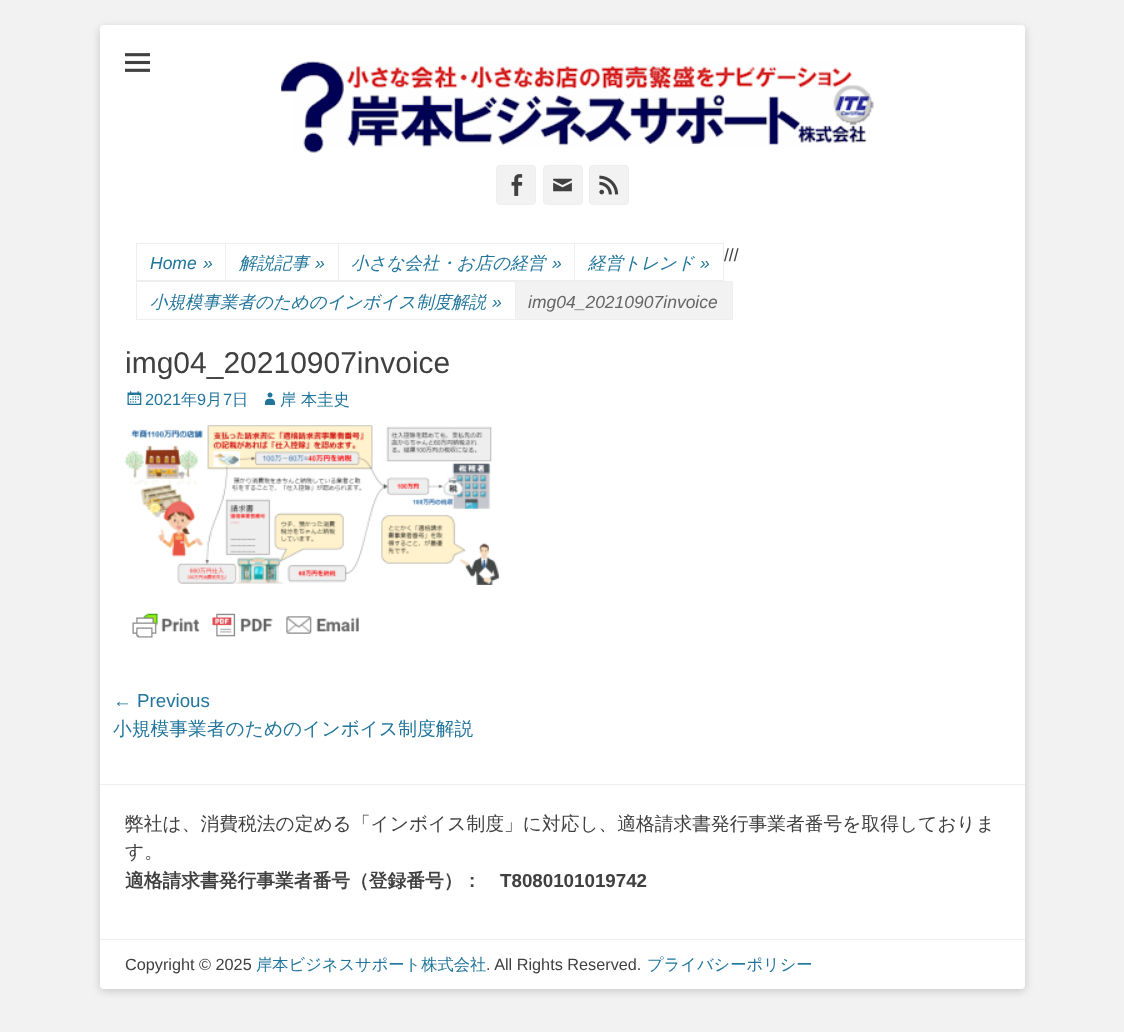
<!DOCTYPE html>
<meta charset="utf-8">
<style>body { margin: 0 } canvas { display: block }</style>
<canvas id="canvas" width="1124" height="1032"></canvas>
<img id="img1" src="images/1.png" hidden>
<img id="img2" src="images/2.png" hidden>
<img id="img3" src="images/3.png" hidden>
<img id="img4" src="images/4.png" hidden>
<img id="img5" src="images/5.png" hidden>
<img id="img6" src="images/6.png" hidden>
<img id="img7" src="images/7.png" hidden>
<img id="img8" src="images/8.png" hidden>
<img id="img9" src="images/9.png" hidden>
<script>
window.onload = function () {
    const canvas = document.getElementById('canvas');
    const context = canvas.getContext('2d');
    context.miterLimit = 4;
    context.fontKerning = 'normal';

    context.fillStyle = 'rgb(242, 242, 242)';
    context.fillRect(0, 0, 1124, 1032);
    context.fillStyle = 'rgba(100, 100, 100, 0.3)';
    context.filter = 'blur(4px)';
    context.beginPath();
    context.roundRect(100, 28, 925, 963, 4);
    context.fill();
    context.filter = 'none';
    context.fillStyle = 'rgb(255, 255, 255)';
    context.beginPath();
    context.roundRect(100, 25, 925, 964, 4);
    context.fill();
    context.drawImage(document.getElementById('img1'), 125, 53, 25, 19);
    context.drawImage(document.getElementById('img2'), 281, 61, 593, 92);
    context.fillStyle = 'rgb(242, 242, 242)';
    context.beginPath();
    context.roundRect(496.5, 165.5, 39, 39, 3.5);
    context.fill();
    context.strokeStyle = 'rgb(238, 238, 238)';
    context.stroke();
    context.drawImage(document.getElementById('img3'), 511, 174, 12, 22);
    context.beginPath();
    context.roundRect(543.5, 165.5, 39, 39, 3.5);
    context.fill();
    context.stroke();
    context.drawImage(document.getElementById('img4'), 553, 178, 19, 14);
    context.beginPath();
    context.roundRect(589.5, 165.5, 39, 39, 3.5);
    context.fill();
    context.stroke();
    context.drawImage(document.getElementById('img5'), 599, 175, 20, 20);
    context.strokeRect(136.5, 243.5, 89, 37);
    context.strokeRect(225.5, 243.5, 113, 37);
    context.strokeRect(338.5, 243.5, 236, 37);
    context.strokeRect(574.5, 243.5, 149, 37);
    context.strokeRect(136.5, 281.5, 379, 38);
    context.beginPath();
    context.rect(515.5, 281.5, 217, 38);
    context.fill();
    context.stroke();
    context.drawImage(document.getElementById('img6'), 127, 391, 15, 14);
    context.drawImage(document.getElementById('img7'), 265, 392, 10, 13);
    context.drawImage(document.getElementById('img8'), 125, 425, 375, 160);
    context.drawImage(document.getElementById('img9'), 132, 613, 227, 25);
    context.fillStyle = 'rgb(238, 238, 238)';
    context.fillRect(100, 784, 925, 1);
    context.fillRect(100, 939, 925, 1);
    context.font = 'italic 17.5px Liberation Sans';
    context.fillStyle = 'rgb(33, 117, 155)';
    context.fillText('Home', 150, 269);
    context.fillText('»', 203, 269);
    context.font = 'italic 500 17.5px WenQuanYi Zen Hei';
    context.fillText('解説記事', 239, 269);
    context.font = 'italic 17.5px Liberation Sans';
    context.fillText('»', 315, 269);
    context.font = 'italic 500 17.5px WenQuanYi Zen Hei';
    context.fillText('小さな会社・お店の経営', 351, 269);
    context.font = 'italic 17.5px Liberation Sans';
    context.fillText('»', 552, 269);
    context.font = 'italic 500 17.5px WenQuanYi Zen Hei';
    context.fillText('経営トレンド', 588, 269);
    context.font = 'italic 17.5px Liberation Sans';
    context.fillText('»', 700, 269);
    context.font = '17.5px Liberation Sans';
    context.fillStyle = 'rgb(64, 64, 64)';
    context.fillText('///', 724, 261);
    context.font = 'italic 500 17.5px WenQuanYi Zen Hei';
    context.fillStyle = 'rgb(33, 117, 155)';
    context.fillText('小規模事業者のためのインボイス制度解説', 150, 308);
    context.font = 'italic 17.5px Liberation Sans';
    context.fillText('»', 492, 308);
    context.fillStyle = 'rgb(102, 102, 102)';
    context.fillText('img04_20210907invoice', 528, 308);
    context.font = '30px Liberation Sans';
    context.fillStyle = 'rgb(64, 64, 64)';
    context.fillText('img04_20210907invoice', 125, 373);
    context.font = '16.25px Liberation Sans';
    context.fillStyle = 'rgb(33, 117, 155)';
    context.fillText('2021', 145, 405);
    context.font = '500 16.25px WenQuanYi Zen Hei';
    context.fillText('年', 181, 405);
    context.font = '16.25px Liberation Sans';
    context.fillText('9', 197, 405);
    context.font = '500 16.25px WenQuanYi Zen Hei';
    context.fillText('月', 206, 405);
    context.font = '16.25px Liberation Sans';
    context.fillText('7', 223, 405);
    context.font = '500 16.25px WenQuanYi Zen Hei';
    context.fillText('日', 232, 405);
    context.fillText('岸 本圭史', 280, 405);
    context.font = '18.75px Liberation Sans';
    context.fillText('← Previous', 113, 707);
    context.font = '500 18.75px WenQuanYi Zen Hei';
    context.fillText('小規模事業者のためのインボイス制度解説', 113, 735);
    context.fillStyle = 'rgb(64, 64, 64)';
    context.fillText('弊社は、消費税法の定める「インボイス制度」に対応し、適格請求書発行事業者番号を取得しておりま', 125, 830);
    context.fillText('す。', 125, 858);
    context.font = 'bold 18.75px WenQuanYi Zen Hei';
    context.fillText('適格請求書発行事業者番号（登録番号）：', 125, 887);
    context.font = 'bold 18.75px Liberation Sans';
    context.fillText('T8080101019742', 500, 887);
    context.font = '16.25px Liberation Sans';
    context.fillText('Copyright © 2025', 125, 970);
    context.font = '500 16.25px WenQuanYi Zen Hei';
    context.fillStyle = 'rgb(33, 117, 155)';
    context.fillText('岸本ビジネスサポート株式会社', 256, 970);
    context.font = '16.25px Liberation Sans';
    context.fillStyle = 'rgb(64, 64, 64)';
    context.fillText('. All Rights Reserved.', 486, 970);
    context.font = '500 16.25px WenQuanYi Zen Hei';
    context.fillStyle = 'rgb(33, 117, 155)';
    context.fillText('プライバシーポリシー', 647, 970);
};
</script>
